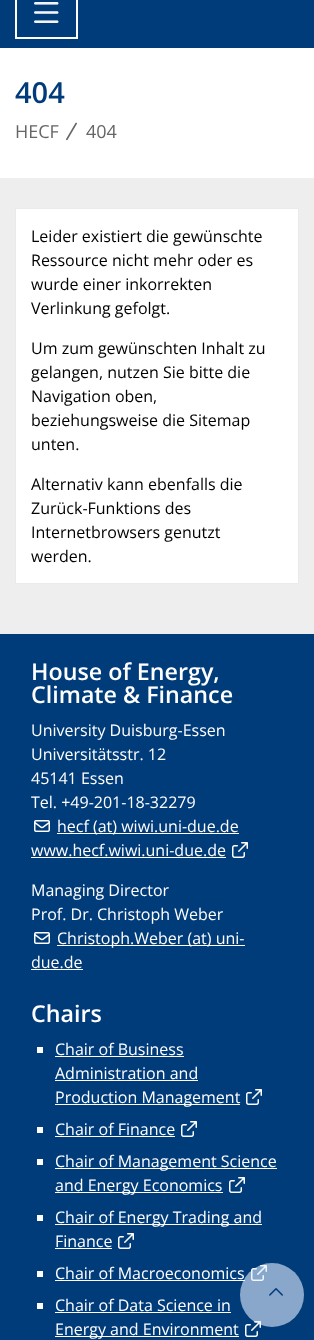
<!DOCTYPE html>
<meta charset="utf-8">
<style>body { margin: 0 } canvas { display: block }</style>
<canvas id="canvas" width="314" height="1340"></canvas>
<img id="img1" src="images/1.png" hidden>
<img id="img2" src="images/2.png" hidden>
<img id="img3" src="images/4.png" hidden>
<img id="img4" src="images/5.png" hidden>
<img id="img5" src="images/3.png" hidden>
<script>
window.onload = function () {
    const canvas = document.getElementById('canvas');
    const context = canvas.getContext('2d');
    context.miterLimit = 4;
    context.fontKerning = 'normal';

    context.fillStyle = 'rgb(255, 255, 255)';
    context.fillRect(0, 0, 314, 1340);
    context.fillStyle = 'rgb(0, 59, 122)';
    context.fillRect(0, 0, 314, 48);
    context.strokeStyle = 'rgb(255, 255, 255)';
    context.lineWidth = 2;
    context.strokeRect(16, -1, 61, 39);
    context.drawImage(document.getElementById('img1'), 34, 2, 25, 21);
    context.drawImage(document.getElementById('img2'), 66, 122, 11, 19);
    context.fillStyle = 'rgb(238, 238, 238)';
    context.fillRect(0, 178, 314, 456);
    context.fillStyle = 'rgb(255, 255, 255)';
    context.beginPath();
    context.rect(15.5, 208.5, 283, 375);
    context.fill();
    context.strokeStyle = 'rgb(234, 234, 234)';
    context.lineWidth = 1;
    context.stroke();
    context.fillStyle = 'rgb(0, 59, 122)';
    context.fillRect(0, 634, 314, 706);
    context.drawImage(document.getElementById('img3'), 34, 820, 16, 12);
    context.fillStyle = 'rgb(255, 255, 255)';
    context.fillRect(57, 833, 182, 1);
    context.fillRect(31, 857, 195, 1);
    context.drawImage(document.getElementById('img4'), 232, 842, 16, 16);
    context.drawImage(document.getElementById('img3'), 34, 932, 16, 12);
    context.fillRect(57, 945, 188, 1);
    context.fillRect(31, 969, 52, 1);
    context.fillRect(37, 1047, 6, 6);
    context.fillRect(55, 1056, 129, 1);
    context.fillRect(55, 1080, 143, 1);
    context.fillRect(55, 1104, 185, 1);
    context.drawImage(document.getElementById('img4'), 246, 1089, 16, 16);
    context.fillRect(37, 1127, 6, 6);
    context.fillRect(55, 1136, 120, 1);
    context.drawImage(document.getElementById('img4'), 181, 1121, 16, 16);
    context.fillRect(37, 1159, 6, 6);
    context.fillRect(55, 1168, 222, 1);
    context.fillRect(55, 1192, 168, 1);
    context.drawImage(document.getElementById('img4'), 229, 1177, 16, 16);
    context.fillRect(37, 1215, 6, 6);
    context.fillRect(55, 1224, 207, 1);
    context.fillRect(55, 1248, 57, 1);
    context.drawImage(document.getElementById('img4'), 118, 1233, 16, 16);
    context.fillRect(37, 1271, 6, 6);
    context.fillRect(55, 1280, 190, 1);
    context.drawImage(document.getElementById('img4'), 251, 1265, 16, 16);
    context.fillRect(37, 1303, 6, 6);
    context.fillRect(55, 1312, 176, 1);
    context.fillRect(55, 1336, 184, 1);
    context.drawImage(document.getElementById('img4'), 245, 1321, 16, 16);
    context.font = '600 29px Open Sans';
    context.fillStyle = 'rgb(0, 59, 122)';
    context.fillText('404', 15, 103);
    context.font = '18px Open Sans';
    context.fillStyle = 'rgb(102, 102, 102)';
    context.fillText('HECF', 15, 138);
    context.fillText('404', 86, 138);
    context.font = '16px Open Sans';
    context.fillStyle = 'rgb(0, 0, 0)';
    context.fillText('Leider existiert die gewünschte', 31, 242);
    context.fillText('Ressource nicht mehr oder es', 31, 266);
    context.fillText('wurde einer inkorrekten', 31, 290);
    context.fillText('Verlinkung gefolgt.', 31, 314);
    context.fillText('Um zum gewünschten Inhalt zu', 31, 354);
    context.fillText('gelangen, nutzen Sie bitte die', 31, 378);
    context.fillText('Navigation oben,', 31, 402);
    context.fillText('beziehungsweise die Sitemap', 31, 426);
    context.fillText('unten.', 31, 450);
    context.fillText('Alternativ kann ebenfalls die', 31, 490);
    context.fillText('Zurück-Funktions des', 31, 514);
    context.fillText('Internetbrowsers genutzt', 31, 538);
    context.fillText('werden.', 31, 562);
    context.font = '600 23.25px Open Sans';
    context.fillStyle = 'rgb(255, 255, 255)';
    context.fillText('House of Energy,', 31, 680);
    context.fillText('Climate & Finance', 31, 703);
    context.font = '16px Open Sans';
    context.fillText('University Duisburg-Essen', 31, 736);
    context.fillText('Universitätsstr. 12', 31, 760);
    context.fillText('45141 Essen', 31, 784);
    context.fillText('Tel. +49-201-18-32279', 31, 808);
    context.fillText('hecf (at) wiwi.uni-due.de', 57, 832);
    context.fillText('www.hecf.wiwi.uni-due.de', 31, 856);
    context.fillText('Managing Director', 31, 896);
    context.fillText('Prof. Dr. Christoph Weber', 31, 920);
    context.fillText('Christoph.Weber (at) uni-', 57, 944);
    context.fillText('due.de', 31, 968);
    context.font = '600 23.25px Open Sans';
    context.fillText('Chairs', 31, 1022);
    context.font = '16px Open Sans';
    context.fillText('Chair of Business', 55, 1055);
    context.fillText('Administration and', 55, 1079);
    context.fillText('Production Management', 55, 1103);
    context.fillText('Chair of Finance', 55, 1135);
    context.fillText('Chair of Management Science', 55, 1167);
    context.fillText('and Energy Economics', 55, 1191);
    context.fillText('Chair of Energy Trading and', 55, 1223);
    context.fillText('Finance', 55, 1247);
    context.fillText('Chair of Macroeconomics', 55, 1279);
    context.fillStyle = 'rgba(228, 240, 255, 0.6)';
    context.beginPath();
    context.arc(272, 1295, 32, 0, 2 * Math.PI);
    context.fill();
    context.drawImage(document.getElementById('img5'), 269, 1288, 14, 8);
    context.fillStyle = 'rgb(255, 255, 255)';
    context.fillText('Chair of Data Science in', 55, 1311);
    context.fillText('Energy and Environment', 55, 1335);
};
</script>
